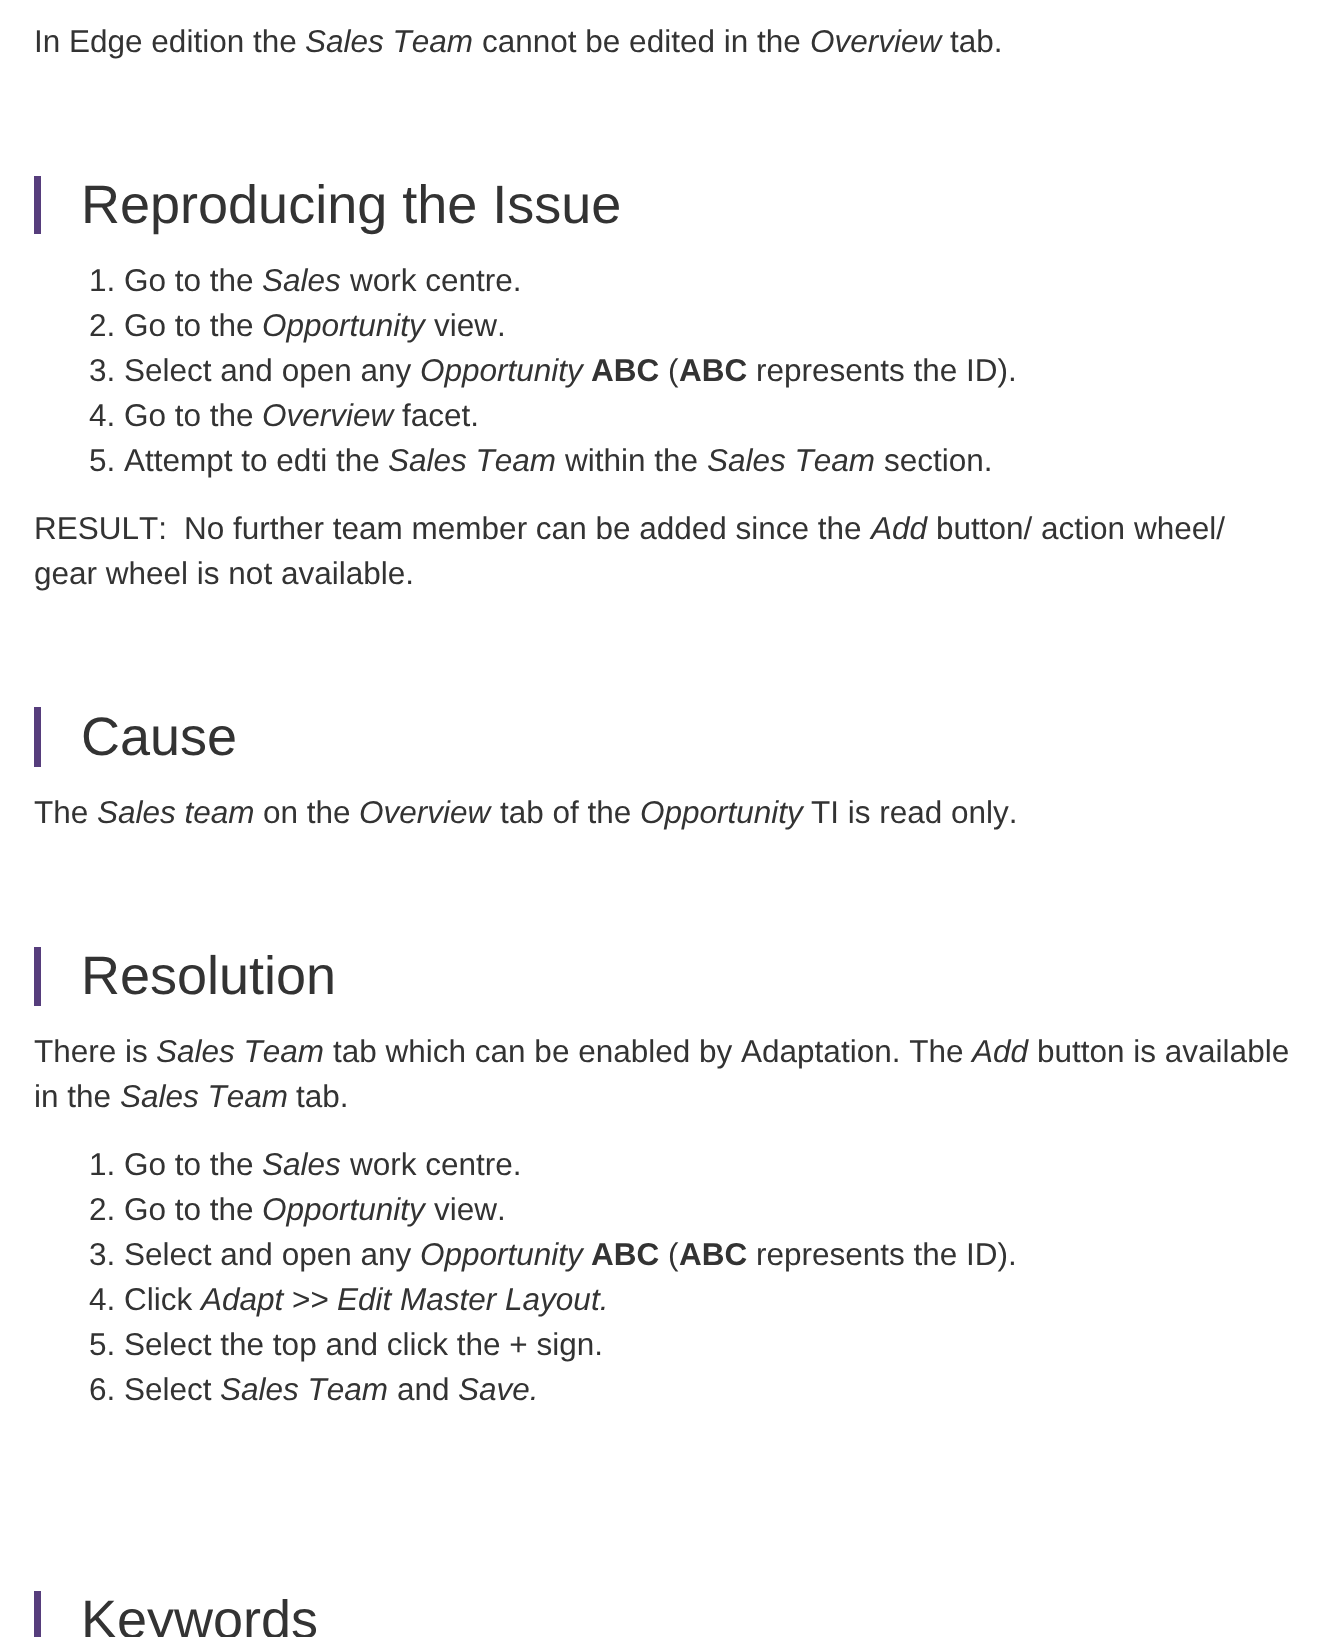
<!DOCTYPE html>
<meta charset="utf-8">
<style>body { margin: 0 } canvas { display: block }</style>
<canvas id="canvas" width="1325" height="1637"></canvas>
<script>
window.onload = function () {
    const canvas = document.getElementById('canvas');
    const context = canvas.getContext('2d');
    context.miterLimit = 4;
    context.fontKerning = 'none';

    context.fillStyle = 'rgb(255, 255, 255)';
    context.fillRect(0, 0, 1325, 1637);
    context.fillStyle = 'rgb(86, 61, 124)';
    context.fillRect(34, 176, 7, 58);
    context.fillRect(34, 707, 7, 60);
    context.fillRect(34, 947, 7, 59);
    context.fillRect(34, 1591, 7, 46);
    context.font = '31.5px Liberation Sans';
    context.fillStyle = 'rgb(51, 51, 51)';
    context.fillText('In Edge edition the', 34, 52);
    context.font = 'italic 31.5px Liberation Sans';
    context.fillText('Sales Team', 305, 52);
    context.font = '31.5px Liberation Sans';
    context.fillText('cannot be edited in the', 482, 52);
    context.font = 'italic 31.5px Liberation Sans';
    context.fillText('Overview', 810, 52);
    context.font = '31.5px Liberation Sans';
    context.fillText('tab.', 950, 52);
    context.font = '54px Liberation Sans';
    context.fillText('Reproducing the Issue', 81, 223);
    context.font = '31.5px Liberation Sans';
    context.fillText('1. Go to the', 89, 291);
    context.font = 'italic 31.5px Liberation Sans';
    context.fillText('Sales', 262, 291);
    context.font = '31.5px Liberation Sans';
    context.fillText('work centre.', 350, 291);
    context.fillText('2. Go to the', 89, 336);
    context.font = 'italic 31.5px Liberation Sans';
    context.fillText('Opportunity', 262, 336);
    context.font = '31.5px Liberation Sans';
    context.fillText('view.', 434, 336);
    context.fillText('3. Select and open any', 89, 381);
    context.font = 'italic 31.5px Liberation Sans';
    context.fillText('Opportunity', 420, 381);
    context.font = 'bold 31.5px Liberation Sans';
    context.fillText('ABC', 591, 381);
    context.font = '31.5px Liberation Sans';
    context.fillText('(', 668, 381);
    context.font = 'bold 31.5px Liberation Sans';
    context.fillText('ABC', 679, 381);
    context.font = '31.5px Liberation Sans';
    context.fillText('represents the ID).', 756, 381);
    context.fillText('4. Go to the', 89, 426);
    context.font = 'italic 31.5px Liberation Sans';
    context.fillText('Overview', 262, 426);
    context.font = '31.5px Liberation Sans';
    context.fillText('facet.', 402, 426);
    context.fillText('5. Attempt to edti the', 89, 471);
    context.font = 'italic 31.5px Liberation Sans';
    context.fillText('Sales Team', 388, 471);
    context.font = '31.5px Liberation Sans';
    context.fillText('within the', 565, 471);
    context.font = 'italic 31.5px Liberation Sans';
    context.fillText('Sales Team', 707, 471);
    context.font = '31.5px Liberation Sans';
    context.fillText('section.', 884, 471);
    context.fillText('RESULT:', 34, 539);
    context.fillText('No further team member can be added since the', 184, 539);
    context.font = 'italic 31.5px Liberation Sans';
    context.fillText('Add', 871, 539);
    context.font = '31.5px Liberation Sans';
    context.fillText('button/ action wheel/', 936, 539);
    context.fillText('gear wheel is not available.', 34, 584);
    context.font = '54px Liberation Sans';
    context.fillText('Cause', 81, 755);
    context.font = '31.5px Liberation Sans';
    context.fillText('The', 34, 823);
    context.font = 'italic 31.5px Liberation Sans';
    context.fillText('Sales team', 97, 823);
    context.font = '31.5px Liberation Sans';
    context.fillText('on the', 263, 823);
    context.font = 'italic 31.5px Liberation Sans';
    context.fillText('Overview', 359, 823);
    context.font = '31.5px Liberation Sans';
    context.fillText('tab of the', 500, 823);
    context.font = 'italic 31.5px Liberation Sans';
    context.fillText('Opportunity', 640, 823);
    context.font = '31.5px Liberation Sans';
    context.fillText('TI is read only.', 811, 823);
    context.font = '54px Liberation Sans';
    context.fillText('Resolution', 81, 994);
    context.font = '31.5px Liberation Sans';
    context.fillText('There is', 34, 1062);
    context.font = 'italic 31.5px Liberation Sans';
    context.fillText('Sales Team', 156, 1062);
    context.font = '31.5px Liberation Sans';
    context.fillText('tab which can be enabled by Adaptation. The', 333, 1062);
    context.font = 'italic 31.5px Liberation Sans';
    context.fillText('Add', 972, 1062);
    context.font = '31.5px Liberation Sans';
    context.fillText('button is available', 1037, 1062);
    context.fillText('in the', 34, 1107);
    context.font = 'italic 31.5px Liberation Sans';
    context.fillText('Sales Team', 120, 1107);
    context.font = '31.5px Liberation Sans';
    context.fillText('tab.', 296, 1107);
    context.fillText('1. Go to the', 89, 1175);
    context.font = 'italic 31.5px Liberation Sans';
    context.fillText('Sales', 262, 1175);
    context.font = '31.5px Liberation Sans';
    context.fillText('work centre.', 350, 1175);
    context.fillText('2. Go to the', 89, 1220);
    context.font = 'italic 31.5px Liberation Sans';
    context.fillText('Opportunity', 262, 1220);
    context.font = '31.5px Liberation Sans';
    context.fillText('view.', 434, 1220);
    context.fillText('3. Select and open any', 89, 1265);
    context.font = 'italic 31.5px Liberation Sans';
    context.fillText('Opportunity', 420, 1265);
    context.font = 'bold 31.5px Liberation Sans';
    context.fillText('ABC', 591, 1265);
    context.font = '31.5px Liberation Sans';
    context.fillText('(', 668, 1265);
    context.font = 'bold 31.5px Liberation Sans';
    context.fillText('ABC', 679, 1265);
    context.font = '31.5px Liberation Sans';
    context.fillText('represents the ID).', 756, 1265);
    context.fillText('4. Click', 89, 1310);
    context.font = 'italic 31.5px Liberation Sans';
    context.fillText('Adapt', 201, 1310);
    context.font = '31.5px Liberation Sans';
    context.fillText('>>', 292, 1310);
    context.font = 'italic 31.5px Liberation Sans';
    context.fillText('Edit Master Layout.', 337, 1310);
    context.font = '31.5px Liberation Sans';
    context.fillText('5. Select the top and click the + sign.', 89, 1355);
    context.fillText('6. Select', 89, 1400);
    context.font = 'italic 31.5px Liberation Sans';
    context.fillText('Sales Team', 220, 1400);
    context.font = '31.5px Liberation Sans';
    context.fillText('and', 397, 1400);
    context.font = 'italic 31.5px Liberation Sans';
    context.fillText('Save.', 458, 1400);
    context.font = '54px Liberation Sans';
    context.fillText('Keywords', 81, 1638);
};
</script>
